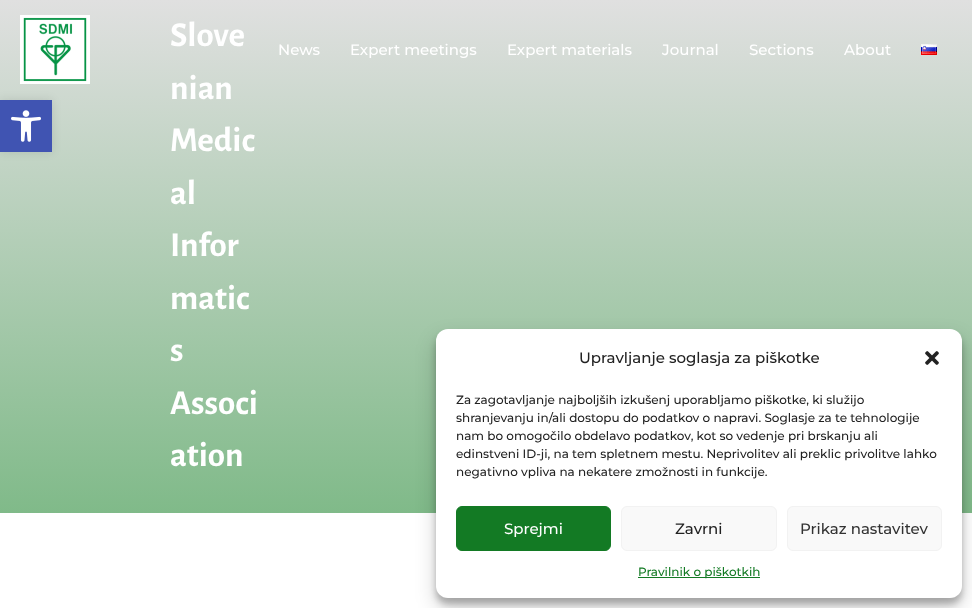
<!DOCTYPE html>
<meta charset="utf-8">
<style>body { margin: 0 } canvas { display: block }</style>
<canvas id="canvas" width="972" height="608"></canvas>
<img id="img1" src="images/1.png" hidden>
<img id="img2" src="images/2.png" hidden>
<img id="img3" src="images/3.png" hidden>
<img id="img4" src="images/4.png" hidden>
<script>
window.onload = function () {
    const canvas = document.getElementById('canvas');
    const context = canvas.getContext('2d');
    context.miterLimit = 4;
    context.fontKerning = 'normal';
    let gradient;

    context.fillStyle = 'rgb(255, 255, 255)';
    context.fillRect(0, 0, 972, 608);
    gradient = context.createLinearGradient(486, 0, 486, 513);
    gradient.addColorStop(0, 'rgb(224, 224, 224)');
    gradient.addColorStop(1, 'rgb(128, 186, 137)');
    context.fillStyle = gradient;
    context.fillRect(0, 0, 972, 513);
    context.fillStyle = 'rgba(0, 0, 0, 0.1)';
    context.filter = 'blur(5px)';
    context.beginPath();
    context.rect(0, 100, 52, 52);
    context.fill();
    context.filter = 'none';
    context.fillStyle = 'rgb(64, 84, 178)';
    context.fillRect(0, 100, 52, 52);
    context.drawImage(document.getElementById('img1'), 11, 110, 30, 32);
    context.drawImage(document.getElementById('img2'), 20, 15, 70, 69);
    context.drawImage(document.getElementById('img3'), 921, 44, 16, 11);
    context.fillStyle = 'rgba(0, 0, 0, 0.23)';
    context.filter = 'blur(3px)';
    context.beginPath();
    context.roundRect(436, 335, 526, 269, 12);
    context.fill();
    context.filter = 'none';
    context.fillStyle = 'rgba(0, 0, 0, 0.19)';
    context.filter = 'blur(10px)';
    context.beginPath();
    context.roundRect(436, 339, 526, 269, 12);
    context.fill();
    context.filter = 'none';
    context.fillStyle = 'rgb(255, 255, 255)';
    context.beginPath();
    context.roundRect(436, 329, 526, 269, 12);
    context.fill();
    context.drawImage(document.getElementById('img4'), 925, 351, 14, 14);
    context.fillStyle = 'rgb(19, 122, 36)';
    context.beginPath();
    context.roundRect(456.5, 506.5, 154, 44, 5.5);
    context.fill();
    context.strokeStyle = 'rgb(19, 122, 36)';
    context.stroke();
    context.fillStyle = 'rgb(249, 249, 249)';
    context.beginPath();
    context.roundRect(621.5, 506.5, 155, 44, 5.5);
    context.fill();
    context.strokeStyle = 'rgb(242, 242, 242)';
    context.stroke();
    context.beginPath();
    context.roundRect(787.5, 506.5, 154, 44, 5.5);
    context.fill();
    context.stroke();
    context.fillStyle = 'rgb(19, 122, 36)';
    context.fillRect(638, 577, 122, 1);
    context.font = 'bold 35px Alegreya Sans';
    context.fillStyle = 'rgb(255, 255, 255)';
    context.fillText('Slove', 170, 46);
    context.fillText('nian', 170, 99);
    context.fillText('Medic', 170, 151);
    context.fillText('al', 170, 204);
    context.fillText('Infor', 170, 256);
    context.fillText('matic', 170, 309);
    context.fillText('s', 170, 361);
    context.fillText('Associ', 170, 414);
    context.fillText('ation', 170, 466);
    context.font = '500 15px Montserrat';
    context.fillText('News', 278, 55);
    context.fillText('Expert meetings', 350, 55);
    context.fillText('Expert materials', 507, 55);
    context.fillText('Journal', 662, 55);
    context.fillText('Sections', 749, 55);
    context.fillText('About', 844, 55);
    context.fillStyle = 'rgb(34, 34, 34)';
    context.fillText('Upravljanje soglasja za piškotke', 579, 363);
    context.font = '500 12px Montserrat';
    context.fillText('Za zagotavljanje najboljših izkušenj uporabljamo piškotke, ki služijo', 456, 404);
    context.fillText('shranjevanju in/ali dostopu do podatkov o napravi. Soglasje za te tehnologije', 456, 422);
    context.fillText('nam bo omogočilo obdelavo podatkov, kot so vedenje pri brskanju ali', 456, 440);
    context.fillText('edinstveni ID-ji, na tem spletnem mestu. Neprivolitev ali preklic privolitve lahko', 456, 458);
    context.fillText('negativno vpliva na nekatere zmožnosti in funkcije.', 456, 476);
    context.font = '500 15px Montserrat';
    context.fillStyle = 'rgb(255, 255, 255)';
    context.fillText('Sprejmi', 504, 534);
    context.fillStyle = 'rgb(34, 34, 34)';
    context.fillText('Zavrni', 675, 534);
    context.fillStyle = 'rgb(51, 51, 51)';
    context.fillText('Prikaz nastavitev', 800, 534);
    context.font = '500 12px Montserrat';
    context.fillStyle = 'rgb(19, 122, 36)';
    context.fillText('Pravilnik o piškotkih', 638, 576);
};
</script>
